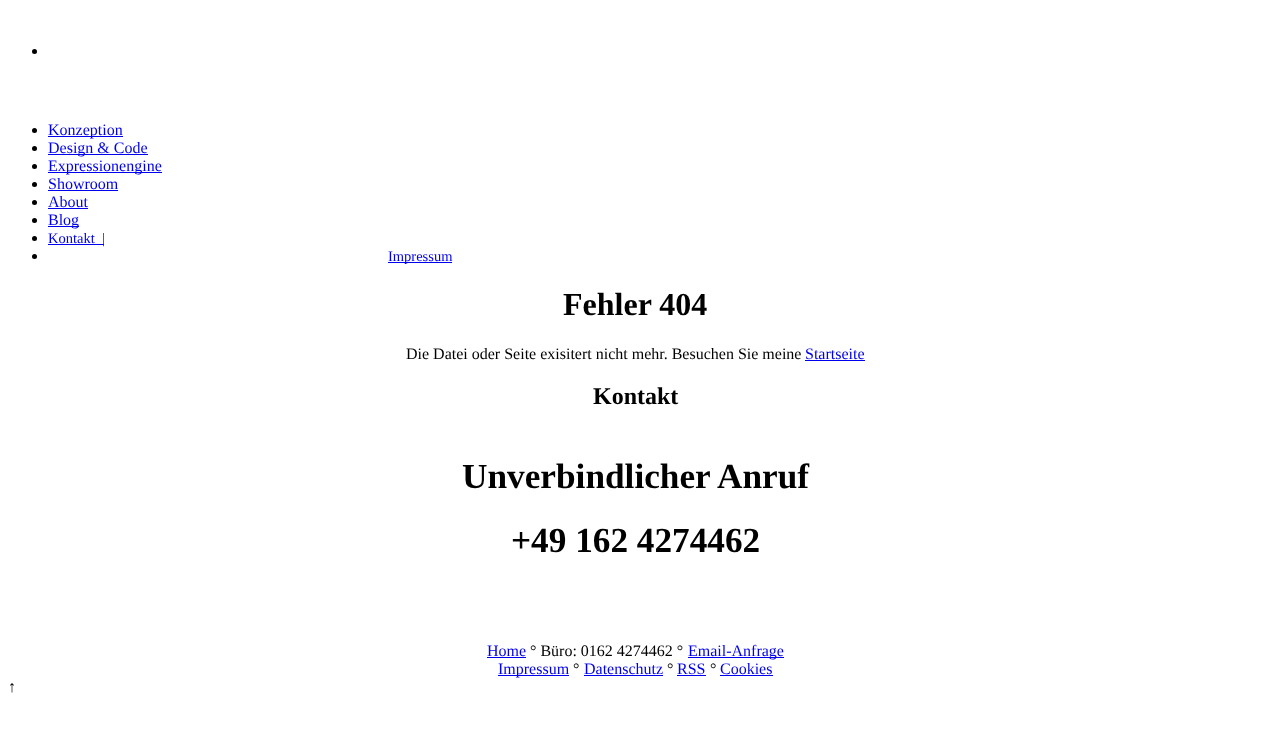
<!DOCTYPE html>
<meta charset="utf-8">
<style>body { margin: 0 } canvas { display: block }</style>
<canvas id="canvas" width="1271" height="753"></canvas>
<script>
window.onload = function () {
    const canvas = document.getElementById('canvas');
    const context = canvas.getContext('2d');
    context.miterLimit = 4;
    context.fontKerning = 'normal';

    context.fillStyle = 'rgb(255, 255, 255)';
    context.fillRect(0, 0, 1271, 753);
    context.fillStyle = 'rgb(0, 0, 0)';
    context.beginPath();
    context.arc(34.5, 51.5, 2.5, 0, 2 * Math.PI);
    context.fill();
    context.beginPath();
    context.arc(34.5, 130.5, 2.5, 0, 2 * Math.PI);
    context.fill();
    context.fillStyle = 'rgb(0, 0, 238)';
    context.fillRect(48, 136, 75, 1);
    context.fillStyle = 'rgb(0, 0, 0)';
    context.beginPath();
    context.arc(34.5, 148.5, 2.5, 0, 2 * Math.PI);
    context.fill();
    context.fillStyle = 'rgb(0, 0, 238)';
    context.fillRect(48, 154, 100, 1);
    context.fillStyle = 'rgb(0, 0, 0)';
    context.beginPath();
    context.arc(34.5, 166.5, 2.5, 0, 2 * Math.PI);
    context.fill();
    context.fillStyle = 'rgb(0, 0, 238)';
    context.fillRect(48, 172, 114, 1);
    context.fillStyle = 'rgb(0, 0, 0)';
    context.beginPath();
    context.arc(34.5, 184.5, 2.5, 0, 2 * Math.PI);
    context.fill();
    context.fillStyle = 'rgb(0, 0, 238)';
    context.fillRect(48, 190, 70, 1);
    context.fillStyle = 'rgb(0, 0, 0)';
    context.beginPath();
    context.arc(34.5, 202.5, 2.5, 0, 2 * Math.PI);
    context.fill();
    context.fillStyle = 'rgb(0, 0, 238)';
    context.fillRect(48, 208, 40, 1);
    context.fillStyle = 'rgb(0, 0, 0)';
    context.beginPath();
    context.arc(34.5, 220.5, 2.5, 0, 2 * Math.PI);
    context.fill();
    context.fillStyle = 'rgb(0, 0, 238)';
    context.fillRect(48, 226, 31, 1);
    context.fillStyle = 'rgb(0, 0, 0)';
    context.beginPath();
    context.arc(34.5, 238.5, 2.5, 0, 2 * Math.PI);
    context.fill();
    context.fillStyle = 'rgb(0, 0, 238)';
    context.fillRect(48, 244, 56, 1);
    context.fillStyle = 'rgb(0, 0, 0)';
    context.beginPath();
    context.arc(34.5, 256.5, 2.5, 0, 2 * Math.PI);
    context.fill();
    context.fillStyle = 'rgb(0, 0, 238)';
    context.fillRect(388, 262, 64, 1);
    context.fillRect(805, 360, 60, 1);
    context.fillRect(487, 657, 39, 1);
    context.fillRect(688, 657, 96, 1);
    context.fillRect(498, 675, 71, 1);
    context.fillRect(584, 675, 79, 1);
    context.fillRect(677, 675, 29, 1);
    context.fillRect(720, 675, 53, 1);
    context.font = '16px Liberation Serif';
    context.fillText('Konzeption', 48, 135);
    context.fillText('Design & Code', 48, 153);
    context.fillText('Expressionengine', 48, 171);
    context.fillText('Showroom', 48, 189);
    context.fillText('About', 48, 207);
    context.fillText('Blog', 48, 225);
    context.font = '14.5px Liberation Serif';
    context.fillText('Kontakt  |', 48, 243);
    context.fillText('Impressum', 388, 261);
    context.font = 'bold 32px Liberation Serif';
    context.fillStyle = 'rgb(0, 0, 0)';
    context.fillText('Fehler 404', 563, 315);
    context.font = '16px Liberation Serif';
    context.fillText('Die Datei oder Seite exisitert nicht mehr. Besuchen Sie meine', 406, 359);
    context.fillStyle = 'rgb(0, 0, 238)';
    context.fillText('Startseite', 805, 359);
    context.font = 'bold 24px Liberation Serif';
    context.fillStyle = 'rgb(0, 0, 0)';
    context.fillText('Kontakt', 593, 404);
    context.font = 'bold 35.25px Liberation Serif';
    context.fillText('Unverbindlicher Anruf', 462, 488);
    context.fillText('+49 162 4274462', 511, 552);
    context.font = '16px Liberation Serif';
    context.fillStyle = 'rgb(0, 0, 238)';
    context.fillText('Home', 487, 656);
    context.fillStyle = 'rgb(0, 0, 0)';
    context.fillText('° Büro: 0162 4274462 °', 530, 656);
    context.fillStyle = 'rgb(0, 0, 238)';
    context.fillText('Email-Anfrage', 688, 656);
    context.fillText('Impressum', 498, 674);
    context.fillStyle = 'rgb(0, 0, 0)';
    context.fillText('°', 573, 674);
    context.fillStyle = 'rgb(0, 0, 238)';
    context.fillText('Datenschutz', 584, 674);
    context.fillStyle = 'rgb(0, 0, 0)';
    context.fillText('°', 667, 674);
    context.fillStyle = 'rgb(0, 0, 238)';
    context.fillText('RSS', 677, 674);
    context.fillStyle = 'rgb(0, 0, 0)';
    context.fillText('°', 710, 674);
    context.fillStyle = 'rgb(0, 0, 238)';
    context.fillText('Cookies', 720, 674);
    context.fillStyle = 'rgb(0, 0, 0)';
    context.fillText('↑', 8, 692);
};
</script>
